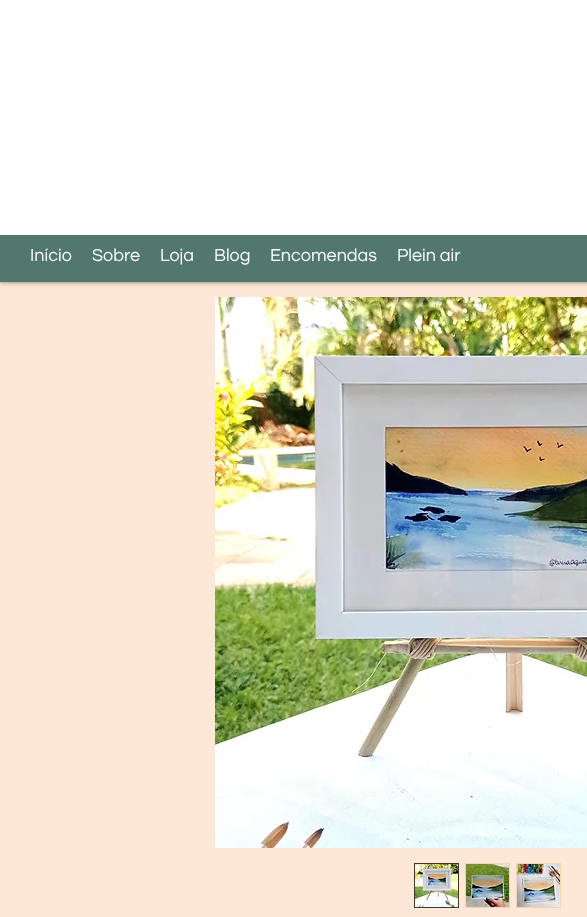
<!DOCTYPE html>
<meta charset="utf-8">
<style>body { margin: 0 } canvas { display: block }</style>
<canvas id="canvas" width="587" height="917"></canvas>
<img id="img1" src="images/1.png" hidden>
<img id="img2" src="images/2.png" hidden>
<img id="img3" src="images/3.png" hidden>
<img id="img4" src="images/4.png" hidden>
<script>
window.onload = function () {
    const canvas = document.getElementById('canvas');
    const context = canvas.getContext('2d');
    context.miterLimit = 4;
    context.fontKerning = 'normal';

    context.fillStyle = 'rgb(253, 232, 216)';
    context.fillRect(0, 0, 587, 917);
    context.fillStyle = 'rgba(0, 0, 0, 0.5)';
    context.filter = 'blur(2.5px)';
    context.beginPath();
    context.rect(0, 0, 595, 282);
    context.fill();
    context.filter = 'none';
    context.fillStyle = 'rgb(82, 119, 108)';
    context.fillRect(0, 235, 587, 47);
    context.fillStyle = 'rgb(255, 255, 255)';
    context.fillRect(0, 0, 587, 235);
    context.drawImage(document.getElementById('img1'), 215, 297, 372, 551);
    context.strokeStyle = 'rgb(63, 53, 44)';
    context.strokeRect(414.5, 863.5, 44, 44);
    context.drawImage(document.getElementById('img2'), 415, 864, 43, 43);
    context.fillStyle = 'rgb(251, 210, 177)';
    context.fillRect(465, 863, 45, 45);
    context.drawImage(document.getElementById('img3'), 466, 864, 43, 43);
    context.fillRect(516, 863, 45, 45);
    context.drawImage(document.getElementById('img4'), 517, 864, 43, 43);
    context.font = '18px Questrial';
    context.fillStyle = 'rgb(255, 255, 255)';
    context.fillText('Início', 30, 261);
    context.fillText('Sobre', 92, 261);
    context.fillText('Loja', 160, 261);
    context.fillText('Blog', 214, 261);
    context.fillText('Encomendas', 270, 261);
    context.fillText('Plein air', 397, 261);
};
</script>
